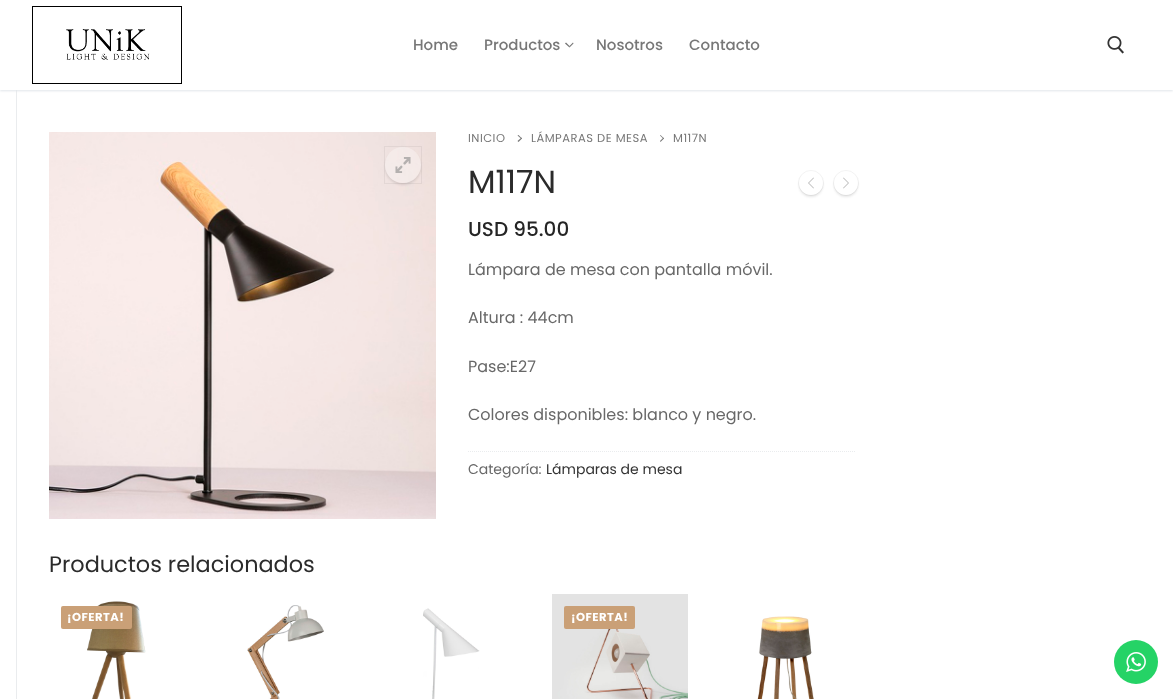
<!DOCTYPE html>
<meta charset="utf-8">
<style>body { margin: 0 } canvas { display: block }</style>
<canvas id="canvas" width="1173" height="699"></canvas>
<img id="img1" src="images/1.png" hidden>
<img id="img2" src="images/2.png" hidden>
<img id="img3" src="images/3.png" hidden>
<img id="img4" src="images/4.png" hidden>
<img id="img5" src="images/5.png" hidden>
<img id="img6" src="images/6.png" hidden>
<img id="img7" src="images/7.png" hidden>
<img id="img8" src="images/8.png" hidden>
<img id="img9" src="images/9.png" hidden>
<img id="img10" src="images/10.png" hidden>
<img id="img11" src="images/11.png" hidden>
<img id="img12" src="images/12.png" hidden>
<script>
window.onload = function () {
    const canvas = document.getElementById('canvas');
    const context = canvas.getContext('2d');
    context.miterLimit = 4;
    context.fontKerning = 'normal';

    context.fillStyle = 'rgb(255, 255, 255)';
    context.fillRect(0, 0, 1173, 699);
    context.fillStyle = 'rgb(234, 236, 238)';
    context.fillRect(16, 90, 1, 609);
    context.save();
    context.beginPath();
    context.rect(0, 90, 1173, 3);
    context.clip();
    context.fillStyle = 'rgb(225, 229, 234)';
    context.filter = 'blur(1px)';
    context.beginPath();
    context.rect(0, 1, 1173, 90);
    context.fill();
    context.filter = 'none';
    context.restore();
    context.drawImage(document.getElementById('img1'), 32, 6, 150, 78);
    context.fillStyle = 'rgb(115, 115, 115)';
    context.beginPath();
    context.moveTo(569.5, 47.5);
    context.lineTo(565, 43.5);
    context.lineTo(566, 42.5);
    context.lineTo(569.5, 46);
    context.closePath();
    context.fill();
    context.fillStyle = 'rgba(0, 0, 0, 0.55)';
    context.beginPath();
    context.moveTo(573.5, 43.5);
    context.lineTo(569.5, 47.5);
    context.lineTo(569.5, 46);
    context.lineTo(573, 42.5);
    context.closePath();
    context.fill();
    context.drawImage(document.getElementById('img2'), 1107, 36, 17, 18);
    context.drawImage(document.getElementById('img3'), 49, 132, 387, 387);
    context.strokeStyle = 'rgba(0, 0, 0, 0.05)';
    context.strokeRect(384.5, 146.5, 37, 37);
    context.save();
    context.beginPath();
    context.moveTo(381, 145);
    context.lineTo(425, 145);
    context.lineTo(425, 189);
    context.lineTo(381, 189);
    context.closePath();
    context.moveTo(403, 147);
    context.bezierCurveTo(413, 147, 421, 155, 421, 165);
    context.bezierCurveTo(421, 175, 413, 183, 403, 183);
    context.bezierCurveTo(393, 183, 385, 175, 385, 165);
    context.bezierCurveTo(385, 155, 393, 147, 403, 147);
    context.closePath();
    context.clip('evenodd');
    context.fillStyle = 'rgba(0, 0, 0, 0.1)';
    context.filter = 'blur(1px)';
    context.beginPath();
    context.roundRect(385, 149, 36, 36, 18);
    context.fill();
    context.filter = 'none';
    context.restore();
    context.fillStyle = 'rgba(255, 255, 255, 0.3)';
    context.beginPath();
    context.arc(403, 165, 18, 0, 2 * Math.PI);
    context.fill();
    context.drawImage(document.getElementById('img4'), 395, 157, 16, 16);
    context.fillStyle = 'rgb(119, 119, 119)';
    context.beginPath();
    context.moveTo(522, 138.5);
    context.lineTo(518.5, 142);
    context.lineTo(517.5, 141);
    context.lineTo(521.5, 137.5);
    context.closePath();
    context.fill();
    context.beginPath();
    context.moveTo(522, 138.5);
    context.lineTo(521.5, 139);
    context.lineTo(517.5, 135.5);
    context.lineTo(518.5, 135);
    context.closePath();
    context.fill();
    context.beginPath();
    context.moveTo(664, 138.5);
    context.lineTo(660.5, 142);
    context.lineTo(660, 141);
    context.lineTo(663.5, 137.5);
    context.closePath();
    context.fill();
    context.beginPath();
    context.moveTo(664, 138.5);
    context.lineTo(663.5, 139);
    context.lineTo(660, 135.5);
    context.lineTo(660.5, 135);
    context.closePath();
    context.fill();
    context.beginPath();
    context.arc(811, 183, 12.5, 0, 2 * Math.PI);
    context.strokeStyle = 'rgb(243, 243, 243)';
    context.stroke();
    context.save();
    context.beginPath();
    context.moveTo(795, 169);
    context.lineTo(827, 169);
    context.lineTo(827, 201);
    context.lineTo(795, 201);
    context.closePath();
    context.moveTo(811, 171);
    context.bezierCurveTo(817.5, 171, 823, 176.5, 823, 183);
    context.bezierCurveTo(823, 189.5, 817.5, 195, 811, 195);
    context.bezierCurveTo(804.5, 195, 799, 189.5, 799, 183);
    context.bezierCurveTo(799, 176.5, 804.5, 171, 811, 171);
    context.closePath();
    context.clip('evenodd');
    context.fillStyle = 'rgba(102, 102, 102, 0.16)';
    context.filter = 'blur(1px)';
    context.beginPath();
    context.roundRect(799, 173, 24, 24, 12);
    context.fill();
    context.filter = 'none';
    context.restore();
    context.fillStyle = 'rgba(255, 255, 255, 0.5)';
    context.beginPath();
    context.arc(811, 183, 12, 0, 2 * Math.PI);
    context.fill();
    context.drawImage(document.getElementById('img5'), 808, 177, 6, 12);
    context.beginPath();
    context.arc(846, 183, 12.5, 0, 2 * Math.PI);
    context.stroke();
    context.save();
    context.beginPath();
    context.moveTo(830, 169);
    context.lineTo(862, 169);
    context.lineTo(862, 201);
    context.lineTo(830, 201);
    context.closePath();
    context.moveTo(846, 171);
    context.bezierCurveTo(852.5, 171, 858, 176.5, 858, 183);
    context.bezierCurveTo(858, 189.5, 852.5, 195, 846, 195);
    context.bezierCurveTo(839.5, 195, 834, 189.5, 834, 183);
    context.bezierCurveTo(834, 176.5, 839.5, 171, 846, 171);
    context.closePath();
    context.clip('evenodd');
    context.fillStyle = 'rgba(102, 102, 102, 0.16)';
    context.filter = 'blur(1px)';
    context.beginPath();
    context.roundRect(834, 173, 24, 24, 12);
    context.fill();
    context.filter = 'none';
    context.restore();
    context.beginPath();
    context.arc(846, 183, 12, 0, 2 * Math.PI);
    context.fill();
    context.drawImage(document.getElementById('img6'), 843, 177, 6, 12);
    context.beginPath();
    context.moveTo(468, 451.5);
    context.lineTo(856, 451.5);
    context.strokeStyle = 'rgb(234, 236, 238)';
    context.setLineDash([1, 1]);
    context.stroke();
    context.drawImage(document.getElementById('img7'), 87, 601, 59, 98);
    context.fillStyle = 'rgb(202, 160, 119)';
    context.beginPath();
    context.roundRect(61, 606, 71, 23, 2);
    context.fill();
    context.drawImage(document.getElementById('img8'), 247, 605, 77, 94);
    context.drawImage(document.getElementById('img9'), 423, 608, 57, 91);
    context.drawImage(document.getElementById('img10'), 552, 594, 136, 105);
    context.beginPath();
    context.roundRect(564, 606, 71, 23, 2);
    context.fill();
    context.drawImage(document.getElementById('img11'), 757, 616, 57, 83);
    context.fillStyle = 'rgb(37, 211, 102)';
    context.beginPath();
    context.arc(1136, 662, 22, 0, 2 * Math.PI);
    context.fill();
    context.drawImage(document.getElementById('img12'), 1126, 652, 20, 20);
    context.font = '500 15px Poppins';
    context.fillStyle = 'rgb(119, 119, 119)';
    context.fillText('Home', 413, 50);
    context.fillText('Productos', 484, 50);
    context.fillText('Nosotros', 596, 50);
    context.fillText('Contacto', 689, 50);
    context.letterSpacing = '0.5px';
    context.font = '11.5px Poppins';
    context.fillText('INICIO', 468, 142);
    context.fillText('LÁMPARAS DE MESA', 531, 142);
    context.fillText('M117N', 673, 142);
    context.letterSpacing = '0px';
    context.font = '32px Poppins';
    context.fillStyle = 'rgb(43, 43, 43)';
    context.fillText('M117N', 468, 193);
    context.font = '500 20px Poppins';
    context.fillStyle = 'rgb(37, 37, 37)';
    context.fillText('USD 95.00', 468, 236);
    context.font = '16px Poppins';
    context.fillStyle = 'rgb(104, 104, 104)';
    context.fillText('Lámpara de mesa con pantalla móvil.', 468, 275);
    context.fillText('Altura : 44cm', 468, 323);
    context.fillText('Pase:E27', 468, 372);
    context.fillText('Colores disponibles: blanco y negro.', 468, 420);
    context.font = '14px Poppins';
    context.fillText('Categoría:', 468, 474);
    context.fillStyle = 'rgb(51, 51, 51)';
    context.fillText('Lámparas de mesa', 546, 474);
    context.font = '22.4px Poppins';
    context.fillStyle = 'rgb(43, 43, 43)';
    context.fillText('Productos relacionados', 49, 572);
    context.letterSpacing = '0.5px';
    context.font = 'bold 11.5px Poppins';
    context.fillStyle = 'rgb(255, 255, 255)';
    context.fillText('¡OFERTA!', 67, 621);
    context.fillText('¡OFERTA!', 571, 621);
};
</script>
